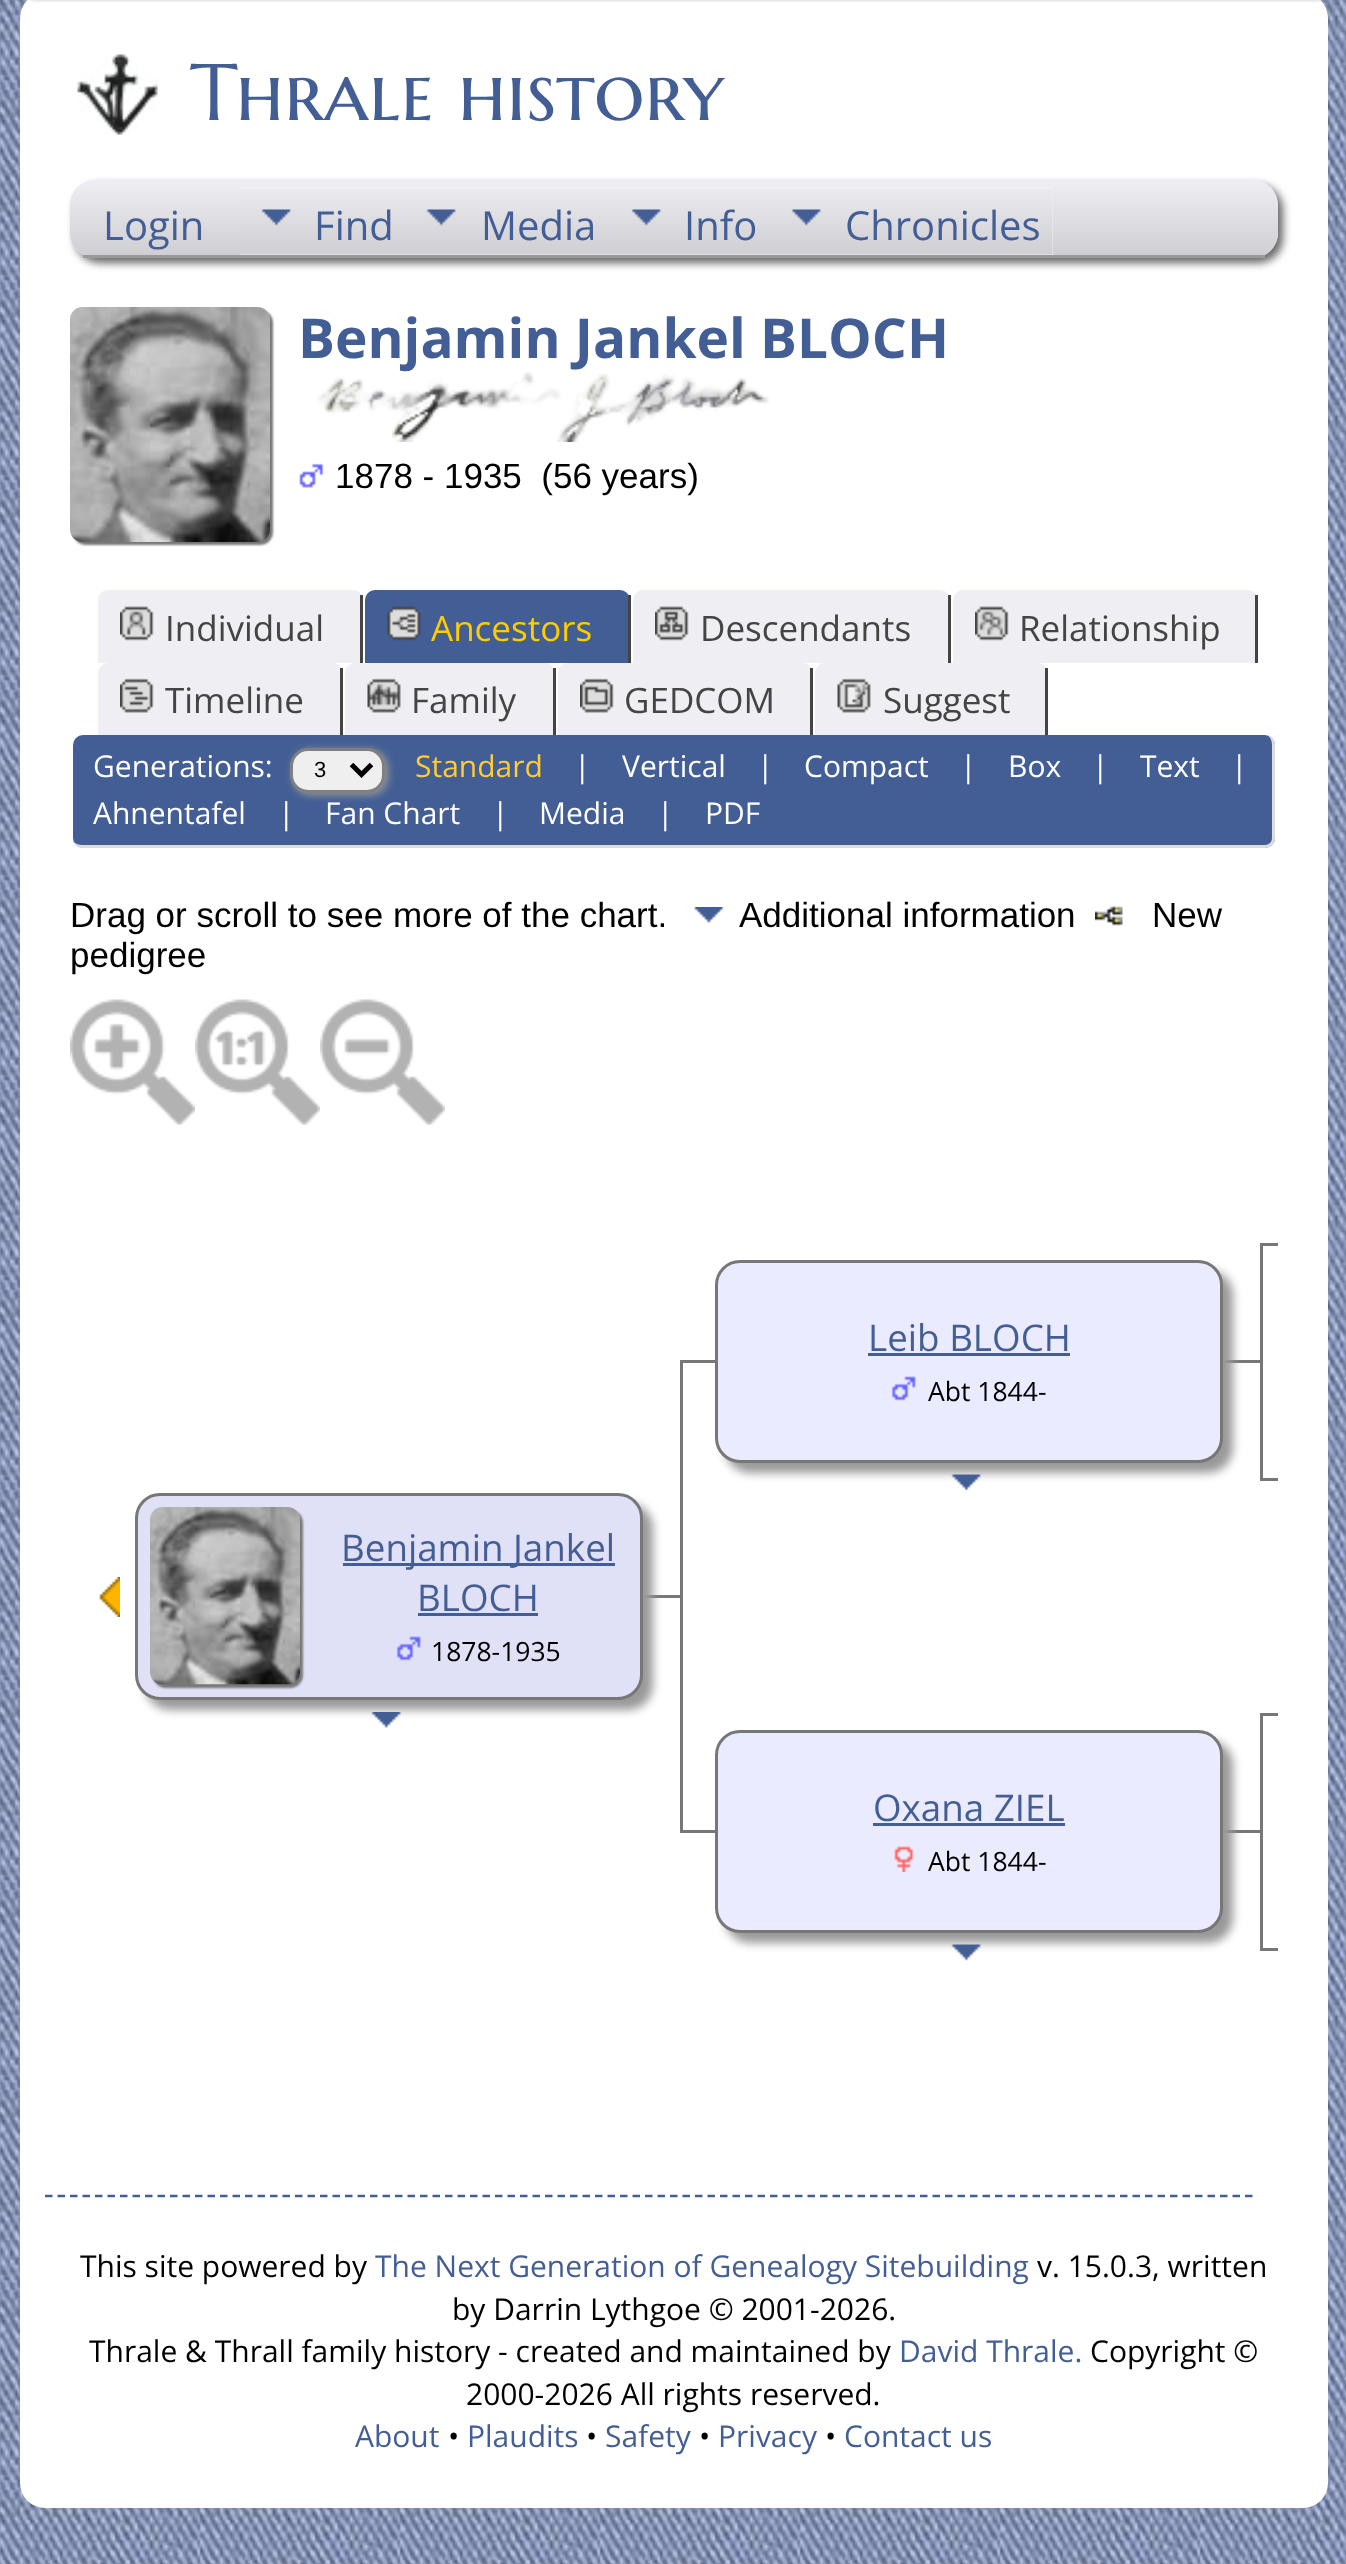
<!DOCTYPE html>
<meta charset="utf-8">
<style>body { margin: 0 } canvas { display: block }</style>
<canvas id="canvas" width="1346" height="2564"></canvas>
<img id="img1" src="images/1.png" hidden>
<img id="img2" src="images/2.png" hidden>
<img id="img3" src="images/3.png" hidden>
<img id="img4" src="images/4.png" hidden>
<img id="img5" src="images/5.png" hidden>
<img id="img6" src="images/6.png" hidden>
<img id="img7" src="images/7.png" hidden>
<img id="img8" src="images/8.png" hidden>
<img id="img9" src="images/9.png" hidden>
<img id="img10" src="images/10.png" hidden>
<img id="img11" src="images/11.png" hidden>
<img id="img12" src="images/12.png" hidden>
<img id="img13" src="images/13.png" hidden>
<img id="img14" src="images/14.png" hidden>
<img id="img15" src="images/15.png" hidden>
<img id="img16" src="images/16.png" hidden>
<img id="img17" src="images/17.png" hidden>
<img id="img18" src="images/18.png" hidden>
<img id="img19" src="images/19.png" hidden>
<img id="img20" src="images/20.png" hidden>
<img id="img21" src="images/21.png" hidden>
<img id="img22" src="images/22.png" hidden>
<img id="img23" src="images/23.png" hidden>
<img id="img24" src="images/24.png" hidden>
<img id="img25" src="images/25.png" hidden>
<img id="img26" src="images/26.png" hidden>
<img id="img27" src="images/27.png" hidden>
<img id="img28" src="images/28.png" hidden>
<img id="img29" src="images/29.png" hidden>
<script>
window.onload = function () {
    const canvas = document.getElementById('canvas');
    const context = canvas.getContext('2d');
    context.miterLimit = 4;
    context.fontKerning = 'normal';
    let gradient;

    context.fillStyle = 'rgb(255, 255, 255)';
    context.fillRect(0, 0, 1346, 2564);
    context.drawImage(document.getElementById('img1'), 0, 0, 1346, 2564);
    context.beginPath();
    context.roundRect(20, -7, 1308, 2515, 25);
    context.fill();
    context.fillStyle = 'rgb(102, 102, 102)';
    context.filter = 'blur(2.5px)';
    context.beginPath();
    context.roundRect(20, -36, 1313, 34, 28);
    context.fill();
    context.filter = 'none';
    context.drawImage(document.getElementById('img2'), 77, 54, 81, 81);
    context.filter = 'blur(4px)';
    context.beginPath();
    context.roundRect(75, 185, 1208, 78, 25);
    context.fill();
    context.filter = 'none';
    context.fillStyle = 'rgb(238, 238, 243)';
    context.beginPath();
    context.roundRect(70, 180, 1208, 78, 25);
    context.fill();
    context.save();
    context.beginPath();
    context.roundRect(70, 180, 1208, 78, 25);
    context.clip();
    gradient = context.createLinearGradient(674, 180, 674, 255);
    gradient.addColorStop(0, 'rgb(238, 238, 243)');
    gradient.addColorStop(1, 'rgb(206, 206, 211)');
    context.fillStyle = gradient;
    context.beginPath();
    context.roundRect(70, 180, 1208, 75, [25, 25, 0, 0]);
    context.fill();
    context.restore();
    context.fillStyle = 'rgb(153, 153, 153)';
    context.fillRect(83, 255, 1182, 3);
    context.fillStyle = 'rgb(238, 238, 243)';
    context.fillRect(240, 186, 813, 69);
    context.drawImage(document.getElementById('img3'), 240, 189, 165, 66);
    context.drawImage(document.getElementById('img4'), 405, 189, 205, 66);
    context.drawImage(document.getElementById('img5'), 610, 189, 160, 66);
    context.drawImage(document.getElementById('img6'), 770, 189, 283, 66);
    context.fillStyle = 'rgb(119, 119, 119)';
    context.filter = 'blur(1px)';
    context.beginPath();
    context.roundRect(73, 310, 200, 235, 13);
    context.fill();
    context.filter = 'none';
    context.drawImage(document.getElementById('img7'), 70, 307, 200, 235);
    context.drawImage(document.getElementById('img8'), 317, 372, 452, 70);
    context.drawImage(document.getElementById('img9'), 299, 463, 25, 25);
    context.fillStyle = 'rgb(238, 238, 243)';
    context.beginPath();
    context.roundRect(98, 590, 265, 73, [10, 10, 0, 0]);
    context.fill();
    context.fillStyle = 'rgb(68, 68, 68)';
    context.fillRect(360, 595, 3, 68);
    context.drawImage(document.getElementById('img10'), 120, 606, 34, 35);
    context.fillStyle = 'rgb(67, 94, 149)';
    context.beginPath();
    context.roundRect(365, 590, 265, 73, [10, 10, 0, 0]);
    context.fill();
    context.fillStyle = 'rgb(68, 68, 68)';
    context.fillRect(628, 595, 3, 68);
    context.drawImage(document.getElementById('img11'), 387, 606, 34, 35);
    context.fillStyle = 'rgb(238, 238, 243)';
    context.beginPath();
    context.roundRect(633, 590, 317, 73, [10, 10, 0, 0]);
    context.fill();
    context.fillStyle = 'rgb(68, 68, 68)';
    context.fillRect(948, 595, 3, 68);
    context.drawImage(document.getElementById('img12'), 655, 606, 34, 35);
    context.fillStyle = 'rgb(238, 238, 243)';
    context.beginPath();
    context.roundRect(953, 590, 305, 73, [10, 10, 0, 0]);
    context.fill();
    context.fillStyle = 'rgb(68, 68, 68)';
    context.fillRect(1255, 595, 3, 68);
    context.drawImage(document.getElementById('img13'), 975, 606, 34, 35);
    context.fillStyle = 'rgb(238, 238, 243)';
    context.beginPath();
    context.roundRect(98, 663, 245, 72, [10, 10, 0, 0]);
    context.fill();
    context.fillStyle = 'rgb(68, 68, 68)';
    context.fillRect(340, 668, 3, 67);
    context.drawImage(document.getElementById('img14'), 120, 678, 34, 35);
    context.fillStyle = 'rgb(238, 238, 243)';
    context.beginPath();
    context.roundRect(345, 663, 210, 72, [10, 10, 0, 0]);
    context.fill();
    context.fillStyle = 'rgb(68, 68, 68)';
    context.fillRect(553, 668, 3, 67);
    context.drawImage(document.getElementById('img15'), 367, 678, 34, 35);
    context.fillStyle = 'rgb(238, 238, 243)';
    context.beginPath();
    context.roundRect(558, 663, 255, 72, [10, 10, 0, 0]);
    context.fill();
    context.fillStyle = 'rgb(68, 68, 68)';
    context.fillRect(810, 668, 3, 67);
    context.drawImage(document.getElementById('img16'), 580, 678, 34, 35);
    context.fillStyle = 'rgb(238, 238, 243)';
    context.beginPath();
    context.roundRect(815, 663, 233, 72, [10, 10, 0, 0]);
    context.fill();
    context.fillStyle = 'rgb(68, 68, 68)';
    context.fillRect(1045, 668, 3, 67);
    context.drawImage(document.getElementById('img17'), 837, 678, 34, 35);
    context.fillStyle = 'rgb(67, 94, 149)';
    context.beginPath();
    context.roundRect(73, 735, 1202, 113, 10);
    context.fill();
    context.fillStyle = 'rgb(221, 221, 221)';
    context.beginPath();
    context.moveTo(82, 735);
    context.lineTo(1265, 735);
    context.bezierCurveTo(1271, 735, 1275, 739, 1275, 745);
    context.lineTo(1275, 838);
    context.bezierCurveTo(1275, 843, 1271, 848, 1265, 848);
    context.lineTo(82, 848);
    context.bezierCurveTo(77, 848, 72, 843, 72, 838);
    context.lineTo(72, 745);
    context.bezierCurveTo(72, 739, 77, 735, 82, 735);
    context.closePath();
    context.moveTo(82, 735);
    context.lineTo(1265, 735);
    context.bezierCurveTo(1269, 735, 1272, 739, 1272, 745);
    context.lineTo(1272, 838);
    context.bezierCurveTo(1272, 842, 1269, 845, 1265, 845);
    context.lineTo(82, 845);
    context.bezierCurveTo(77, 845, 72, 842, 72, 838);
    context.lineTo(72, 745);
    context.bezierCurveTo(72, 739, 77, 735, 82, 735);
    context.closePath();
    context.fill('evenodd');
    context.fillStyle = 'rgb(153, 153, 153)';
    context.filter = 'blur(4px)';
    context.beginPath();
    context.roundRect(293, 750, 95, 45, 18);
    context.fill();
    context.filter = 'none';
    context.fillStyle = 'rgb(239, 239, 239)';
    context.beginPath();
    context.roundRect(291.5, 749.5, 92, 42, 16.5);
    context.fill();
    context.strokeStyle = 'rgb(128, 128, 128)';
    context.lineWidth = 3;
    context.stroke();
    context.beginPath();
    context.moveTo(351.5, 764.5);
    context.lineTo(361.5, 774.5);
    context.lineTo(371.5, 764.5);
    context.strokeStyle = 'rgb(0, 0, 0)';
    context.lineWidth = 5;
    context.stroke();
    context.drawImage(document.getElementById('img18'), 694, 907, 30, 16);
    context.drawImage(document.getElementById('img19'), 1095, 906, 28, 20);
    context.drawImage(document.getElementById('img20'), 70, 999, 125, 126);
    context.drawImage(document.getElementById('img21'), 195, 999, 125, 126);
    context.drawImage(document.getElementById('img22'), 320, 999, 125, 126);
    context.fillStyle = 'rgb(119, 119, 119)';
    context.fillRect(1260, 1243, 18, 3);
    context.fillRect(680, 1360, 43, 3);
    context.fillRect(1220, 1360, 40, 3);
    context.fillStyle = 'rgb(153, 153, 153)';
    context.filter = 'blur(5px)';
    context.beginPath();
    context.roundRect(725, 1270, 508, 203, 25);
    context.fill();
    context.filter = 'none';
    context.fillStyle = 'rgb(235, 235, 255)';
    context.beginPath();
    context.roundRect(716.5, 1261.5, 505, 200, 23.5);
    context.fill();
    context.strokeStyle = 'rgb(119, 119, 119)';
    context.lineWidth = 3;
    context.stroke();
    context.fillStyle = 'rgb(67, 94, 149)';
    context.fillRect(868, 1353, 202, 3);
    context.drawImage(document.getElementById('img23'), 891, 1376, 25, 25);
    context.drawImage(document.getElementById('img24'), 951, 1474, 30, 17);
    context.fillStyle = 'rgb(119, 119, 119)';
    context.fillRect(1260, 1243, 3, 120);
    context.fillRect(680, 1360, 3, 238);
    context.fillRect(1260, 1478, 18, 3);
    context.fillRect(1260, 1363, 3, 117);
    context.drawImage(document.getElementById('img25'), 99, 1577, 21, 40);
    context.fillRect(640, 1595, 40, 3);
    context.fillStyle = 'rgb(153, 153, 153)';
    context.filter = 'blur(5px)';
    context.beginPath();
    context.roundRect(145, 1503, 508, 207, 25);
    context.fill();
    context.filter = 'none';
    context.fillStyle = 'rgb(224, 224, 247)';
    context.beginPath();
    context.roundRect(136.5, 1494.5, 505, 204, 23.5);
    context.fill();
    context.stroke();
    context.fillStyle = 'rgb(119, 119, 119)';
    context.filter = 'blur(1px)';
    context.beginPath();
    context.roundRect(153, 1510, 150, 178, 13);
    context.fill();
    context.filter = 'none';
    context.drawImage(document.getElementById('img26'), 150, 1507, 150, 178);
    context.fillStyle = 'rgb(67, 94, 149)';
    context.fillRect(343, 1563, 272, 3);
    context.fillRect(418, 1613, 120, 3);
    context.drawImage(document.getElementById('img27'), 396, 1636, 25, 25);
    context.drawImage(document.getElementById('img28'), 371, 1712, 30, 16);
    context.fillStyle = 'rgb(119, 119, 119)';
    context.fillRect(680, 1830, 43, 3);
    context.fillRect(680, 1598, 3, 235);
    context.fillRect(1260, 1713, 18, 3);
    context.fillRect(1220, 1830, 40, 3);
    context.fillStyle = 'rgb(153, 153, 153)';
    context.filter = 'blur(5px)';
    context.beginPath();
    context.roundRect(725, 1740, 508, 203, 25);
    context.fill();
    context.filter = 'none';
    context.fillStyle = 'rgb(235, 235, 255)';
    context.beginPath();
    context.roundRect(716.5, 1731.5, 505, 200, 23.5);
    context.fill();
    context.stroke();
    context.fillStyle = 'rgb(67, 94, 149)';
    context.fillRect(873, 1823, 192, 3);
    context.drawImage(document.getElementById('img29'), 894, 1846, 20, 26);
    context.drawImage(document.getElementById('img24'), 951, 1944, 30, 17);
    context.fillStyle = 'rgb(119, 119, 119)';
    context.fillRect(1260, 1713, 3, 120);
    context.fillRect(1260, 1948, 18, 3);
    context.fillRect(1260, 1833, 3, 117);
    context.beginPath();
    context.moveTo(45, 2196);
    context.lineTo(1252.5, 2196);
    context.strokeStyle = 'rgb(67, 94, 149)';
    context.lineWidth = 2.5;
    context.setLineDash([7.5, 5]);
    context.stroke();
    context.font = '80px Marcellus SC';
    context.fillStyle = 'rgb(67, 94, 149)';
    context.fillText('Thrale history', 190, 120);
    context.font = '40px Open Sans';
    context.fillText('Login', 103, 240);
    context.fillText('Find', 314, 240);
    context.fillText('Media', 481, 240);
    context.fillText('Info', 684, 240);
    context.fillText('Chronicles', 845, 240);
    context.font = 'bold 55px Open Sans';
    context.fillText('Benjamin Jankel BLOCH', 298, 358);
    context.font = '35px Liberation Sans';
    context.fillStyle = 'rgb(0, 0, 0)';
    context.fillText('1878 - 1935  (56 years)', 335, 488);
    context.font = '35px Open Sans';
    context.fillStyle = 'rgb(68, 68, 68)';
    context.fillText('Individual', 165, 641);
    context.fillStyle = 'rgb(255, 204, 0)';
    context.fillText('Ancestors', 431, 641);
    context.fillStyle = 'rgb(68, 68, 68)';
    context.fillText('Descendants', 700, 641);
    context.fillText('Relationship', 1019, 641);
    context.fillText('Timeline', 165, 713);
    context.fillText('Family', 411, 713);
    context.fillText('GEDCOM', 624, 713);
    context.fillText('Suggest', 883, 713);
    context.font = '30px Open Sans';
    context.fillStyle = 'rgb(255, 255, 255)';
    context.fillText('Generations:', 93, 777);
    context.font = '22px Liberation Sans';
    context.fillStyle = 'rgb(0, 0, 0)';
    context.fillText('3', 314, 777);
    context.font = '30px Open Sans';
    context.fillStyle = 'rgb(255, 204, 51)';
    context.fillText('Standard', 415, 777);
    context.fillStyle = 'rgb(255, 255, 255)';
    context.fillText('|', 574, 777);
    context.fillText('Vertical', 622, 777);
    context.fillText('|', 757, 777);
    context.fillText('Compact', 804, 777);
    context.fillText('|', 960, 777);
    context.fillText('Box', 1008, 777);
    context.fillText('|', 1092, 777);
    context.fillText('Text', 1140, 777);
    context.fillText('|', 1231, 777);
    context.fillText('Ahnentafel', 93, 824);
    context.fillText('|', 278, 824);
    context.fillText('Fan Chart', 325, 824);
    context.fillText('|', 492, 824);
    context.fillText('Media', 539, 824);
    context.fillText('|', 657, 824);
    context.fillText('PDF', 705, 824);
    context.font = '35px Liberation Sans';
    context.fillStyle = 'rgb(0, 0, 0)';
    context.fillText('Drag or scroll to see more of the chart.', 70, 927);
    context.fillText('Additional information', 739, 927);
    context.fillText('New', 1152, 927);
    context.fillText('pedigree', 70, 967);
    context.font = '36.75px Open Sans';
    context.fillStyle = 'rgb(67, 94, 149)';
    context.fillText('Leib BLOCH', 868, 1351);
    context.font = '26.5px Open Sans';
    context.fillStyle = 'rgb(0, 0, 0)';
    context.fillText('Abt 1844-', 928, 1401);
    context.font = '36.75px Open Sans';
    context.fillStyle = 'rgb(67, 94, 149)';
    context.fillText('Benjamin Jankel', 341, 1561);
    context.fillText('BLOCH', 417, 1611);
    context.font = '26.5px Open Sans';
    context.fillStyle = 'rgb(0, 0, 0)';
    context.fillText('1878-1935', 431, 1661);
    context.font = '36.75px Open Sans';
    context.fillStyle = 'rgb(67, 94, 149)';
    context.fillText('Oxana ZIEL', 873, 1821);
    context.font = '26.5px Open Sans';
    context.fillStyle = 'rgb(0, 0, 0)';
    context.fillText('Abt 1844-', 928, 1871);
    context.font = '30px Open Sans';
    context.fillText('This site powered by', 80, 2277);
    context.fillStyle = 'rgb(67, 94, 149)';
    context.fillText('The Next Generation of Genealogy Sitebuilding', 375, 2277);
    context.fillStyle = 'rgb(0, 0, 0)';
    context.fillText('v. 15.0.3, written', 1037, 2277);
    context.fillText('by Darrin Lythgoe © 2001-2026.', 452, 2320);
    context.fillText('Thrale & Thrall family history - created and maintained by', 89, 2362);
    context.fillStyle = 'rgb(67, 94, 149)';
    context.fillText('David Thrale.', 899, 2362);
    context.fillStyle = 'rgb(0, 0, 0)';
    context.fillText('Copyright ©', 1090, 2362);
    context.fillText('2000-2026 All rights reserved.', 466, 2405);
    context.fillStyle = 'rgb(67, 94, 149)';
    context.fillText('About', 355, 2447);
    context.fillStyle = 'rgb(0, 0, 0)';
    context.fillText('•', 448, 2447);
    context.fillStyle = 'rgb(67, 94, 149)';
    context.fillText('Plaudits', 467, 2447);
    context.fillStyle = 'rgb(0, 0, 0)';
    context.fillText('•', 586, 2447);
    context.fillStyle = 'rgb(67, 94, 149)';
    context.fillText('Safety', 605, 2447);
    context.fillStyle = 'rgb(0, 0, 0)';
    context.fillText('•', 699, 2447);
    context.fillStyle = 'rgb(67, 94, 149)';
    context.fillText('Privacy', 718, 2447);
    context.fillStyle = 'rgb(0, 0, 0)';
    context.fillText('•', 825, 2447);
    context.fillStyle = 'rgb(67, 94, 149)';
    context.fillText('Contact us', 844, 2447);
};
</script>
